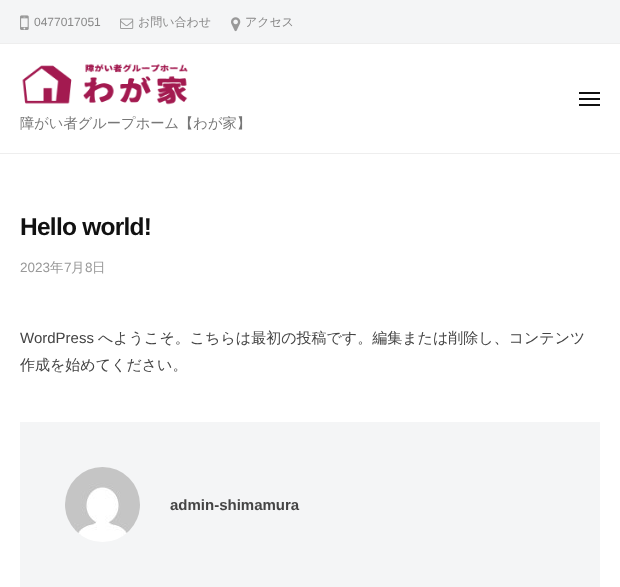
<!DOCTYPE html>
<meta charset="utf-8">
<style>body { margin: 0 } canvas { display: block }</style>
<canvas id="canvas" width="620" height="587"></canvas>
<img id="img1" src="images/1.png" hidden>
<img id="img2" src="images/2.png" hidden>
<img id="img3" src="images/3.png" hidden>
<img id="img4" src="images/4.png" hidden>
<img id="img5" src="images/5.png" hidden>
<script>
window.onload = function () {
    const canvas = document.getElementById('canvas');
    const context = canvas.getContext('2d');
    context.miterLimit = 4;
    context.fontKerning = 'normal';

    context.fillStyle = 'rgb(255, 255, 255)';
    context.fillRect(0, 0, 620, 587);
    context.fillStyle = 'rgb(238, 238, 238)';
    context.fillRect(0, 153, 620, 1);
    context.fillStyle = 'rgb(244, 245, 246)';
    context.fillRect(0, 0, 620, 43);
    context.fillStyle = 'rgb(238, 238, 238)';
    context.fillRect(0, 43, 620, 1);
    context.drawImage(document.getElementById('img1'), 20, 15, 9, 15);
    context.drawImage(document.getElementById('img2'), 120, 18, 14, 11);
    context.drawImage(document.getElementById('img3'), 231, 17, 10, 15);
    context.fillStyle = 'rgb(17, 17, 17)';
    context.fillRect(579, 98, 21, 2);
    context.fillRect(579, 92, 21, 2);
    context.fillRect(579, 104, 21, 2);
    context.drawImage(document.getElementById('img4'), 22, 63, 166, 42);
    context.fillStyle = 'rgb(244, 245, 246)';
    context.fillRect(20, 422, 580, 165);
    context.drawImage(document.getElementById('img5'), 65, 467, 75, 75);
    context.font = '12px Liberation Sans';
    context.fillStyle = 'rgb(136, 136, 136)';
    context.fillText('0477017051', 34, 26);
    context.font = '500 12px WenQuanYi Zen Hei';
    context.fillText('お問い合わせ', 138, 26);
    context.fillText('アクセス', 245, 26);
    context.font = '500 14.25px WenQuanYi Zen Hei';
    context.fillStyle = 'rgb(119, 119, 119)';
    context.fillText('障がい者グループホーム【わが家】', 20, 128);
    context.letterSpacing = '-0.75px';
    context.font = 'bold 24.5px Liberation Sans';
    context.fillStyle = 'rgb(17, 17, 17)';
    context.fillText('Hello world!', 20, 235);
    context.letterSpacing = '0px';
    context.font = '13.5px Liberation Sans';
    context.fillStyle = 'rgb(153, 153, 153)';
    context.fillText('2023', 20, 272);
    context.font = '500 13.5px WenQuanYi Zen Hei';
    context.fillText('年', 50, 272);
    context.font = '13.5px Liberation Sans';
    context.fillText('7', 64, 272);
    context.font = '500 13.5px WenQuanYi Zen Hei';
    context.fillText('月', 71, 272);
    context.font = '13.5px Liberation Sans';
    context.fillText('8', 85, 272);
    context.font = '500 13.5px WenQuanYi Zen Hei';
    context.fillText('日', 92, 272);
    context.font = '15px Liberation Sans';
    context.fillStyle = 'rgb(68, 68, 68)';
    context.fillText('WordPress', 20, 343);
    context.font = '500 15px WenQuanYi Zen Hei';
    context.fillText('へようこそ。こちらは最初の投稿です。編集または削除し、コンテンツ', 98, 343);
    context.fillText('作成を始めてください。', 20, 370);
    context.font = 'bold 15px Liberation Sans';
    context.fillText('admin-shimamura', 170, 510);
};
</script>
